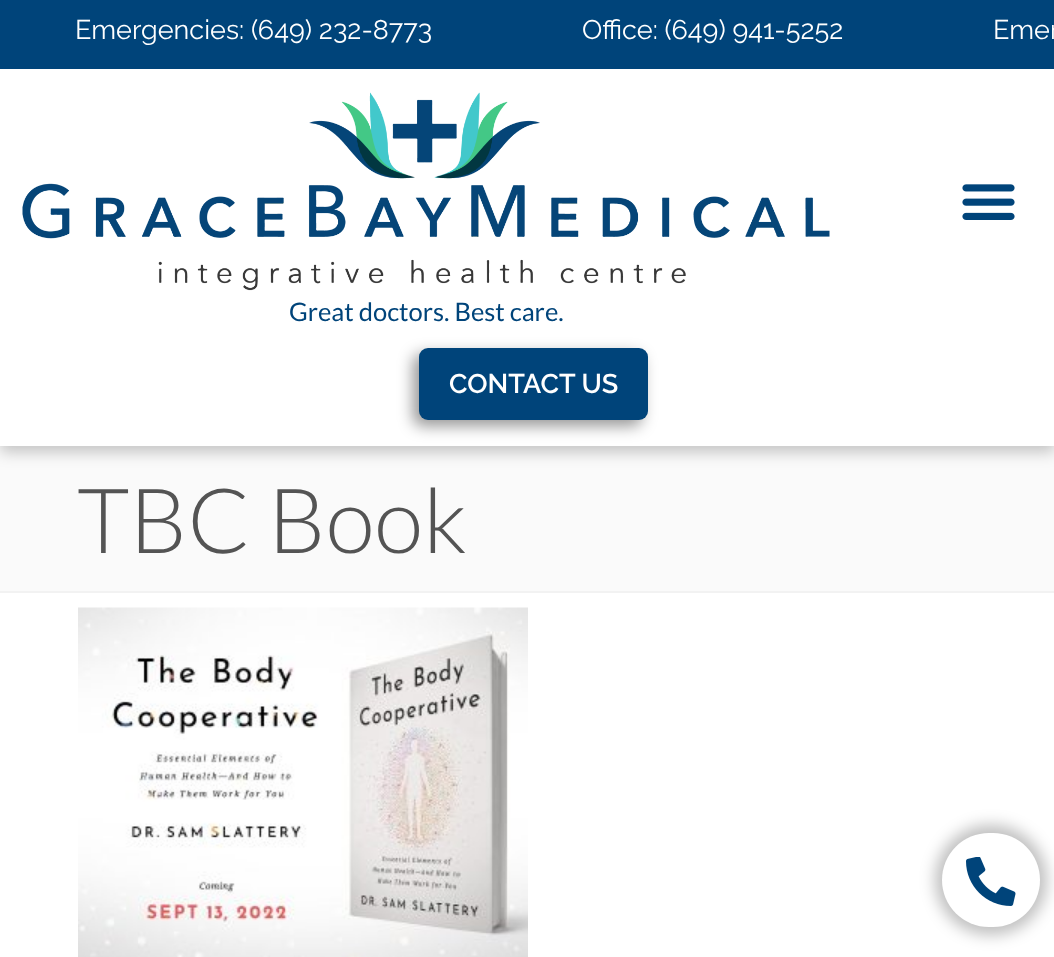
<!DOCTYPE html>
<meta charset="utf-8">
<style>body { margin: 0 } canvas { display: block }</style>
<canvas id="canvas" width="1054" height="957"></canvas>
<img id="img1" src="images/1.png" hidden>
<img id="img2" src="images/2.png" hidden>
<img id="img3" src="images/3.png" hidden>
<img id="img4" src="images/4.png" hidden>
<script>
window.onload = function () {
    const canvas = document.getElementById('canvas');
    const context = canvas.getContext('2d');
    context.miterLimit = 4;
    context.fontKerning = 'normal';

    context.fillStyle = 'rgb(255, 255, 255)';
    context.fillRect(0, 0, 1054, 957);
    context.fillStyle = 'rgb(250, 250, 250)';
    context.fillRect(0, 446, 1054, 145);
    context.fillStyle = 'rgba(0, 0, 0, 0.22)';
    context.filter = 'blur(7.5px)';
    context.beginPath();
    context.rect(0, 75, 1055, 377);
    context.fill();
    context.filter = 'none';
    context.fillStyle = 'rgb(0, 68, 122)';
    context.fillRect(0, 0, 1054, 69);
    context.fillStyle = 'rgb(255, 255, 255)';
    context.fillRect(0, 69, 1054, 377);
    context.drawImage(document.getElementById('img1'), 962, 184, 53, 36);
    context.drawImage(document.getElementById('img2'), 22, 92, 808, 199);
    context.fillStyle = 'rgba(0, 0, 0, 0.25)';
    context.filter = 'blur(7.5px)';
    context.beginPath();
    context.roundRect(935, 825, 112, 110, 55);
    context.fill();
    context.filter = 'none';
    context.fillStyle = 'rgb(255, 255, 255)';
    context.beginPath();
    context.roundRect(942, 833, 98, 94, 47);
    context.fill();
    context.drawImage(document.getElementById('img3'), 966, 857, 50, 49);
    context.fillStyle = 'rgba(0, 0, 0, 0.41)';
    context.filter = 'blur(7.5px)';
    context.beginPath();
    context.roundRect(413, 354, 229, 72, 9);
    context.fill();
    context.filter = 'none';
    context.fillStyle = 'rgb(0, 68, 122)';
    context.beginPath();
    context.roundRect(419, 348, 229, 72, 9);
    context.fill();
    context.fillStyle = 'rgb(242, 242, 242)';
    context.fillRect(0, 591, 1054, 2);
    context.drawImage(document.getElementById('img4'), 78, 607, 450, 350);
    context.font = '27px Raleway';
    context.fillStyle = 'rgb(255, 255, 255)';
    context.fillText('Emergencies: (649) 232-8773', 75, 39);
    context.fillText('Office: (649) 941-5252', 582, 39);
    context.fillText('Emer', 993, 39);
    context.font = '25.5px Lato';
    context.fillStyle = 'rgb(0, 68, 122)';
    context.fillText('Great doctors. Best care.', 289, 321);
    context.font = '600 27px Raleway';
    context.fillStyle = 'rgb(255, 255, 255)';
    context.fillText('CONTACT US', 449, 393);
    context.font = '300 90px Lato';
    context.fillStyle = 'rgb(84, 84, 84)';
    context.fillText('TBC Book', 77, 553);
};
</script>
